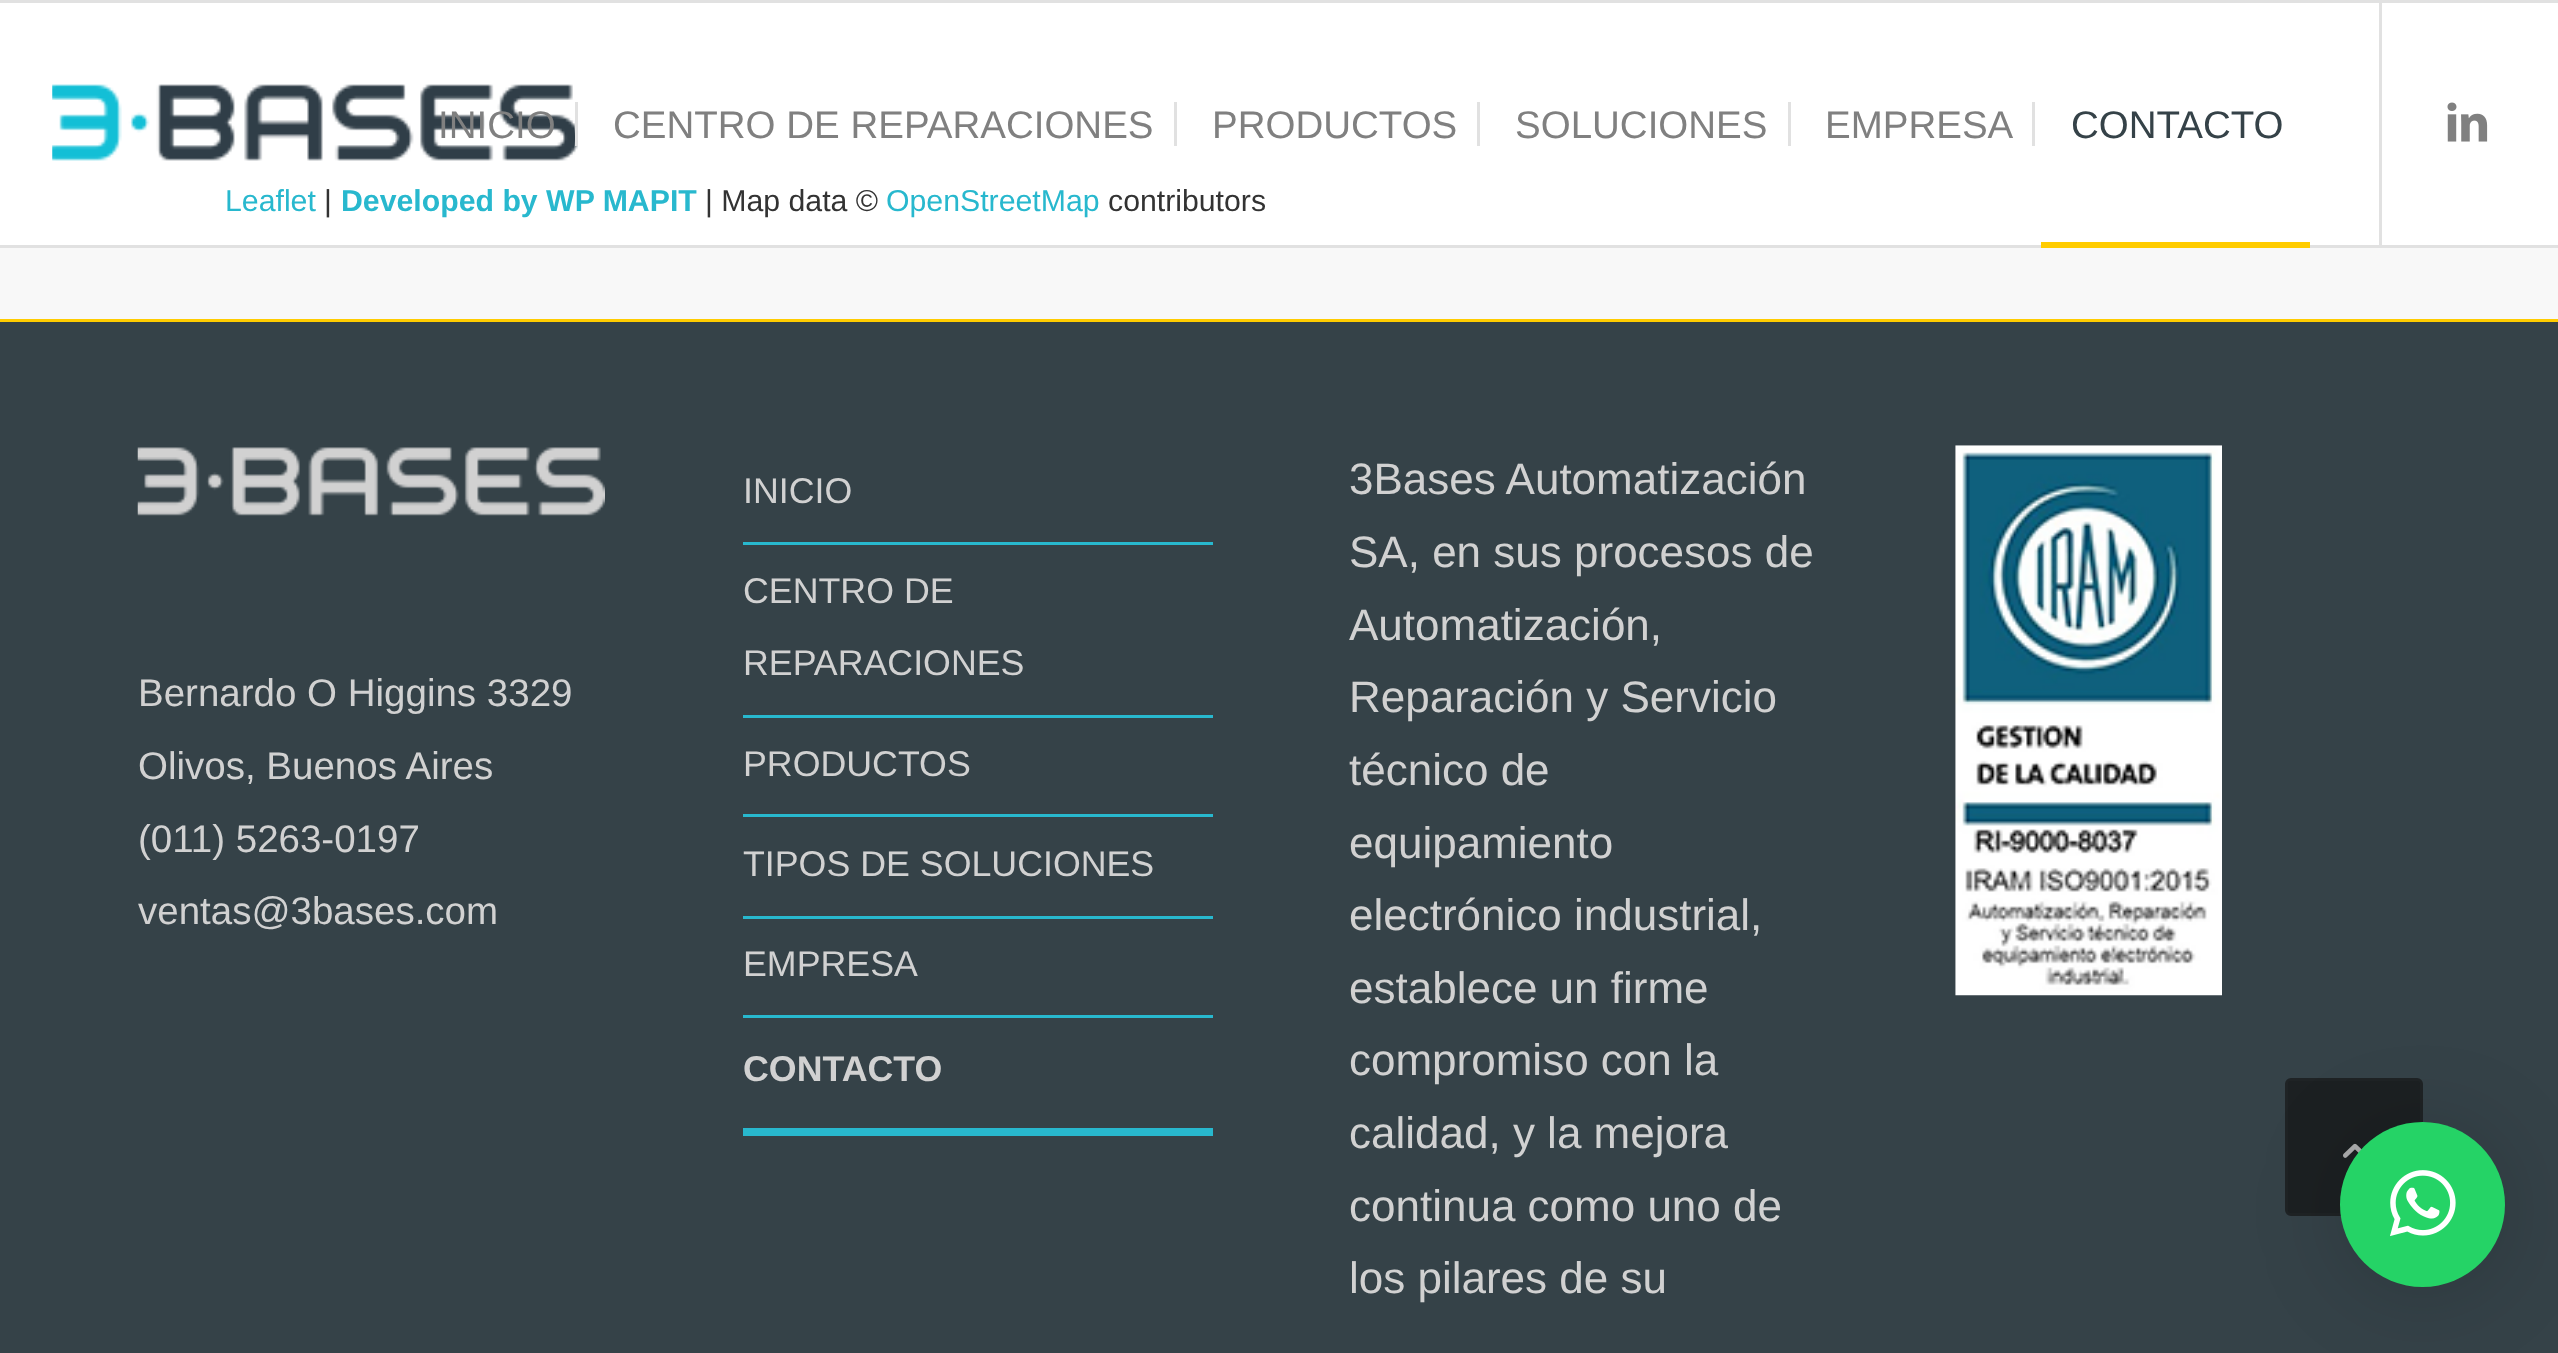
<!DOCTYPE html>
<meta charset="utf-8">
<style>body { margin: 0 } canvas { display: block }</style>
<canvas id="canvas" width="2558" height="1353"></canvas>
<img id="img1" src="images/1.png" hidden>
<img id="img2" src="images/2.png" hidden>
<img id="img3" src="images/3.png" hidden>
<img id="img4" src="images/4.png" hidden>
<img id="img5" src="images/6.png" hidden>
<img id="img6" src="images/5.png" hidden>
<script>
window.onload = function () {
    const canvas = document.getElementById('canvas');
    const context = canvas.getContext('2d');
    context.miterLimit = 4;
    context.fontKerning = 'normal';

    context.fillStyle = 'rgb(248, 248, 248)';
    context.fillRect(0, 0, 2558, 1353);
    context.fillStyle = 'rgb(255, 255, 255)';
    context.fillRect(0, 3, 2558, 242);
    context.fillStyle = 'rgb(225, 225, 225)';
    context.fillRect(0, 0, 2558, 3);
    context.fillRect(0, 245, 2558, 3);
    context.drawImage(document.getElementById('img1'), 52, 84, 526, 77);
    context.fillRect(2379, 3, 3, 242);
    context.fillRect(575, 102, 3, 44);
    context.fillRect(1174, 102, 3, 44);
    context.fillRect(1477, 102, 3, 44);
    context.fillRect(1788, 102, 3, 44);
    context.fillRect(2032, 102, 3, 44);
    context.fillStyle = 'rgb(255, 204, 0)';
    context.fillRect(2041, 242, 269, 6);
    context.drawImage(document.getElementById('img2'), 2447, 102, 41, 40);
    context.fillStyle = 'rgb(53, 66, 72)';
    context.fillRect(0, 322, 2558, 1031);
    context.fillStyle = 'rgb(255, 204, 0)';
    context.fillRect(0, 319, 2558, 3);
    context.drawImage(document.getElementById('img3'), 137, 447, 468, 69);
    context.fillStyle = 'rgb(40, 184, 206)';
    context.fillRect(743, 542, 470, 3);
    context.fillRect(743, 715, 470, 3);
    context.fillRect(743, 814, 470, 3);
    context.fillRect(743, 916, 470, 3);
    context.fillRect(743, 1015, 470, 3);
    context.fillRect(743, 1128, 470, 8);
    context.drawImage(document.getElementById('img4'), 1955, 445, 267, 551);
    context.fillStyle = 'rgb(28, 32, 34)';
    context.beginPath();
    context.roundRect(2286.5, 1079.5, 135, 135, 4.5);
    context.fill();
    context.strokeStyle = 'rgb(31, 35, 37)';
    context.lineWidth = 3;
    context.stroke();
    context.drawImage(document.getElementById('img5'), 2343, 1143, 19, 15);
    context.fillStyle = 'rgba(0, 0, 0, 0.16)';
    context.filter = 'blur(44px)';
    context.beginPath();
    context.roundRect(2340, 1128, 165, 165, 82.5);
    context.fill();
    context.filter = 'none';
    context.fillStyle = 'rgb(37, 211, 102)';
    context.beginPath();
    context.arc(2422.5, 1204.5, 82.5, 0, 2 * Math.PI);
    context.fill();
    context.drawImage(document.getElementById('img6'), 2390, 1170, 66, 67);
    context.font = '38.5px Liberation Sans';
    context.fillStyle = 'rgb(128, 128, 128)';
    context.fillText('INICIO', 438, 138);
    context.fillText('CENTRO DE REPARACIONES', 613, 138);
    context.fillText('PRODUCTOS', 1212, 138);
    context.fillText('SOLUCIONES', 1515, 138);
    context.fillText('EMPRESA', 1825, 138);
    context.fillStyle = 'rgb(53, 66, 72)';
    context.fillText('CONTACTO', 2071, 138);
    context.font = '30.25px Liberation Sans';
    context.fillStyle = 'rgb(40, 184, 206)';
    context.fillText('Leaflet', 225, 211);
    context.fillStyle = 'rgb(51, 51, 51)';
    context.fillText('|', 324, 211);
    context.font = 'bold 30.25px Liberation Sans';
    context.fillStyle = 'rgb(40, 184, 206)';
    context.fillText('Developed by WP MAPIT', 341, 211);
    context.font = '30.25px Liberation Sans';
    context.fillStyle = 'rgb(51, 51, 51)';
    context.fillText('| Map data ©', 705, 211);
    context.fillStyle = 'rgb(40, 184, 206)';
    context.fillText('OpenStreetMap', 886, 211);
    context.fillStyle = 'rgb(51, 51, 51)';
    context.fillText('contributors', 1108, 211);
    context.font = '38.5px Liberation Sans';
    context.fillStyle = 'rgb(209, 209, 209)';
    context.fillText('Bernardo O Higgins 3329', 138, 706);
    context.fillText('Olivos, Buenos Aires', 138, 779);
    context.fillText('(011) 5263-0197', 138, 852);
    context.fillText('ventas@3bases.com', 138, 924);
    context.font = '35.75px Liberation Sans';
    context.fillText('INICIO', 743, 503);
    context.fillText('CENTRO DE', 743, 603);
    context.fillText('REPARACIONES', 743, 675);
    context.fillText('PRODUCTOS', 743, 776);
    context.fillText('TIPOS DE SOLUCIONES', 743, 876);
    context.fillText('EMPRESA', 743, 976);
    context.font = 'bold 35.75px Liberation Sans';
    context.fillText('CONTACTO', 743, 1081);
    context.font = '44px Liberation Sans';
    context.fillText('3Bases Automatización', 1349, 494);
    context.fillText('SA, en sus procesos de', 1349, 567);
    context.fillText('Automatización,', 1349, 640);
    context.fillText('Reparación y Servicio', 1349, 712);
    context.fillText('técnico de', 1349, 785);
    context.fillText('equipamiento', 1349, 858);
    context.fillText('electrónico industrial,', 1349, 930);
    context.fillText('establece un firme', 1349, 1003);
    context.fillText('compromiso con la', 1349, 1075);
    context.fillText('calidad, y la mejora', 1349, 1148);
    context.fillText('continua como uno de', 1349, 1221);
    context.fillText('los pilares de su', 1349, 1293);
};
</script>
